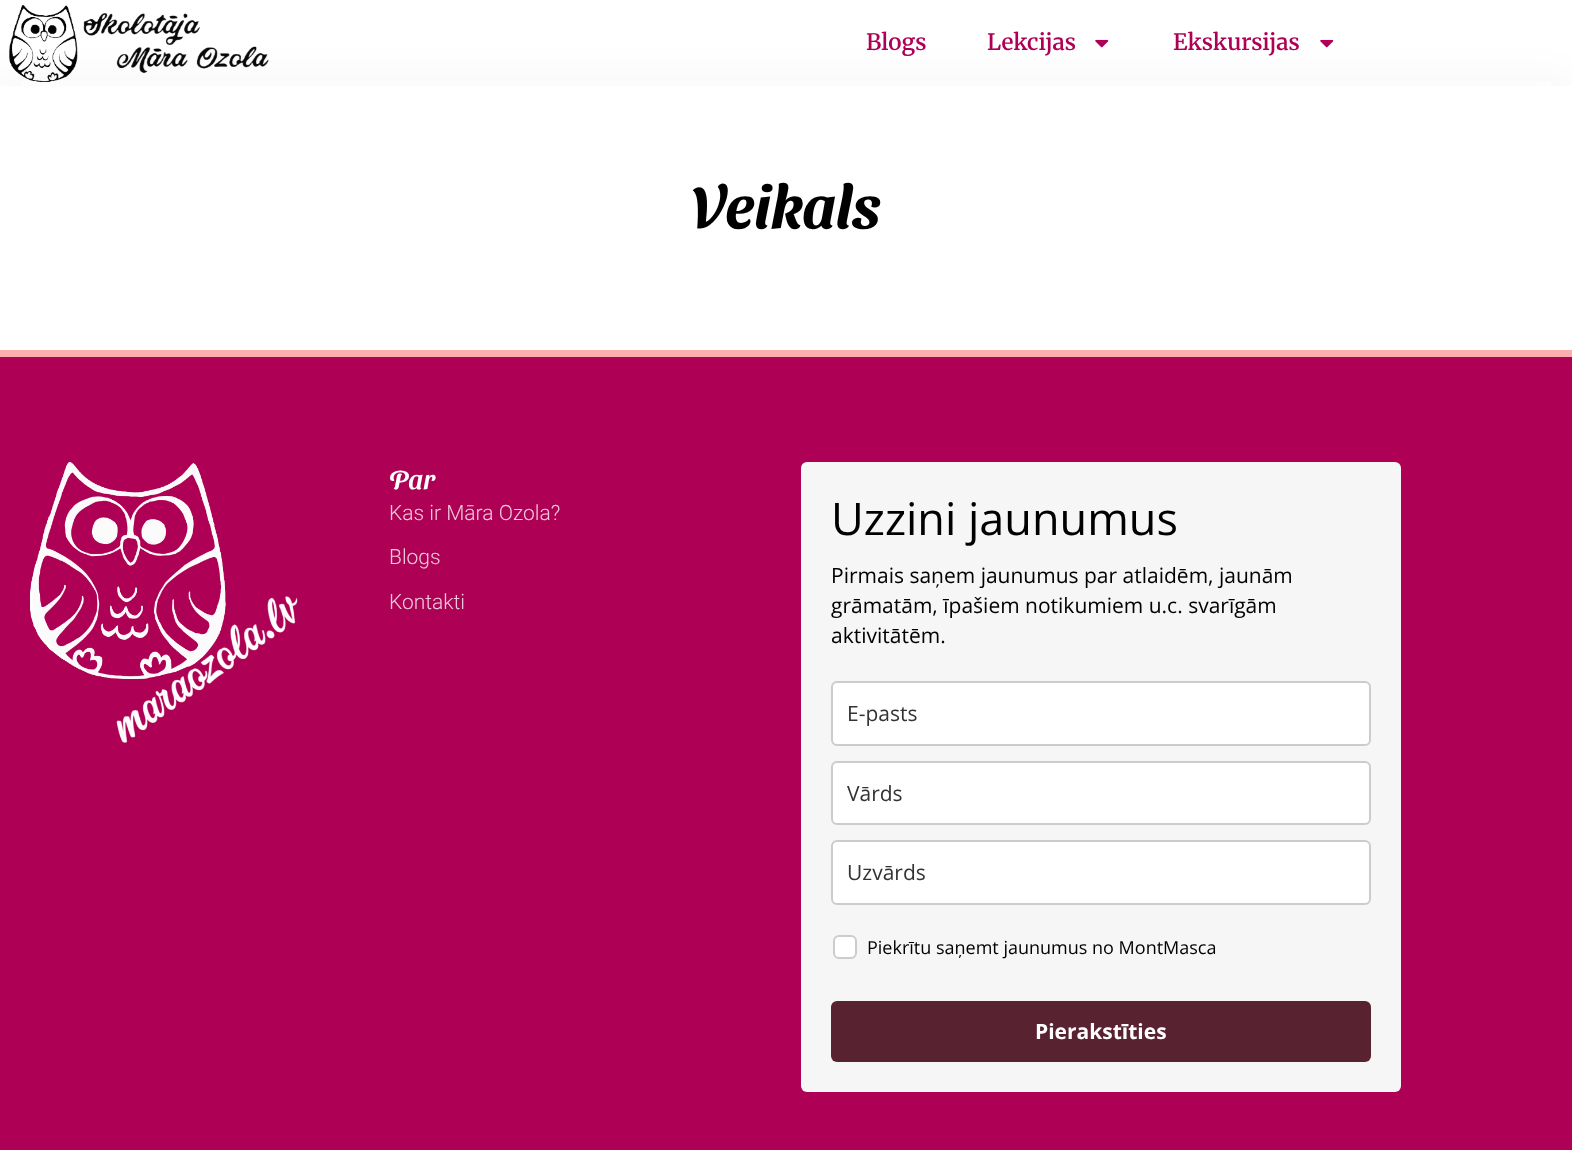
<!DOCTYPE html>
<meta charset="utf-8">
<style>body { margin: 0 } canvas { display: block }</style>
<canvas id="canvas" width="1572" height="1150"></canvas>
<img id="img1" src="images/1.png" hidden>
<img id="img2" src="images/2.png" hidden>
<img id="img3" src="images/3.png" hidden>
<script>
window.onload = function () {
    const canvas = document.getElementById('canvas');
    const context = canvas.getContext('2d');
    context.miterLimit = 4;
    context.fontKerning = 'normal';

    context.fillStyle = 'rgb(255, 255, 255)';
    context.fillRect(0, 0, 1572, 1150);
    context.fillStyle = 'rgba(0, 0, 0, 0.05)';
    context.filter = 'blur(22.5px)';
    context.beginPath();
    context.rect(0, 86, 1572, 264);
    context.fill();
    context.filter = 'none';
    context.fillStyle = 'rgba(255, 255, 255, 0.5)';
    context.fillRect(21, 81, 1530, 5);
    context.drawImage(document.getElementById('img1'), 9, 5, 260, 77);
    context.drawImage(document.getElementById('img2'), 1095, 39, 14, 9);
    context.drawImage(document.getElementById('img2'), 1320, 39, 14, 9);
    context.fillStyle = 'rgb(255, 255, 255)';
    context.fillRect(0, 86, 1572, 264);
    context.fillStyle = 'rgb(174, 0, 84)';
    context.fillRect(0, 357, 1572, 793);
    context.fillStyle = 'rgb(252, 173, 173)';
    context.fillRect(0, 350, 1572, 7);
    context.drawImage(document.getElementById('img3'), 30, 462, 268, 281);
    context.fillStyle = 'rgb(246, 246, 246)';
    context.beginPath();
    context.roundRect(801, 462, 600, 630, 6);
    context.fill();
    context.fillStyle = 'rgb(255, 255, 255)';
    context.beginPath();
    context.roundRect(832, 682, 538, 63, 5);
    context.fill();
    context.strokeStyle = 'rgb(204, 204, 204)';
    context.lineWidth = 2;
    context.stroke();
    context.beginPath();
    context.roundRect(832, 762, 538, 62, 5);
    context.fill();
    context.stroke();
    context.beginPath();
    context.roundRect(832, 841, 538, 63, 5);
    context.fill();
    context.stroke();
    context.beginPath();
    context.roundRect(834, 936, 22, 22, 5);
    context.fill();
    context.stroke();
    context.fillStyle = 'rgb(88, 34, 49)';
    context.beginPath();
    context.roundRect(831, 1001, 540, 61, 6);
    context.fill();
    context.font = '600 22.5px Merriweather';
    context.fillStyle = 'rgb(174, 0, 84)';
    context.fillText('Blogs', 866, 50);
    context.fillText('Lekcijas', 987, 50);
    context.fillText('Ekskursijas', 1173, 50);
    context.font = '600 60px Sansita Swashed';
    context.fillStyle = 'rgb(0, 0, 0)';
    context.fillText('Veikals', 692, 228);
    context.font = '500 27px Sansita Swashed';
    context.fillStyle = 'rgb(255, 255, 255)';
    context.fillText('Par', 389, 489);
    context.font = '300 21px Roboto';
    context.fillStyle = 'rgb(238, 201, 219)';
    context.fillText('Kas ir Māra Ozola?', 389, 520);
    context.fillText('Blogs', 389, 564);
    context.fillText('Kontakti', 389, 609);
    context.font = '45px Open Sans';
    context.fillStyle = 'rgb(0, 0, 0)';
    context.fillText('Uzzini jaunumus', 831, 535);
    context.font = '21px Open Sans';
    context.fillText('Pirmais saņem jaunumus par atlaidēm, jaunām', 831, 583);
    context.fillText('grāmatām, īpašiem notikumiem u.c. svarīgām', 831, 613);
    context.fillText('aktivitātēm.', 831, 643);
    context.fillStyle = 'rgb(51, 51, 51)';
    context.fillText('E-pasts', 847, 721);
    context.fillText('Vārds', 847, 801);
    context.fillText('Uzvārds', 847, 880);
    context.font = '18px Open Sans';
    context.fillStyle = 'rgb(0, 0, 0)';
    context.fillText('Piekrītu saņemt jaunumus no MontMasca', 867, 954);
    context.font = 'bold 21px Open Sans';
    context.fillStyle = 'rgb(255, 255, 255)';
    context.fillText('Pierakstīties', 1035, 1039);
};
</script>
